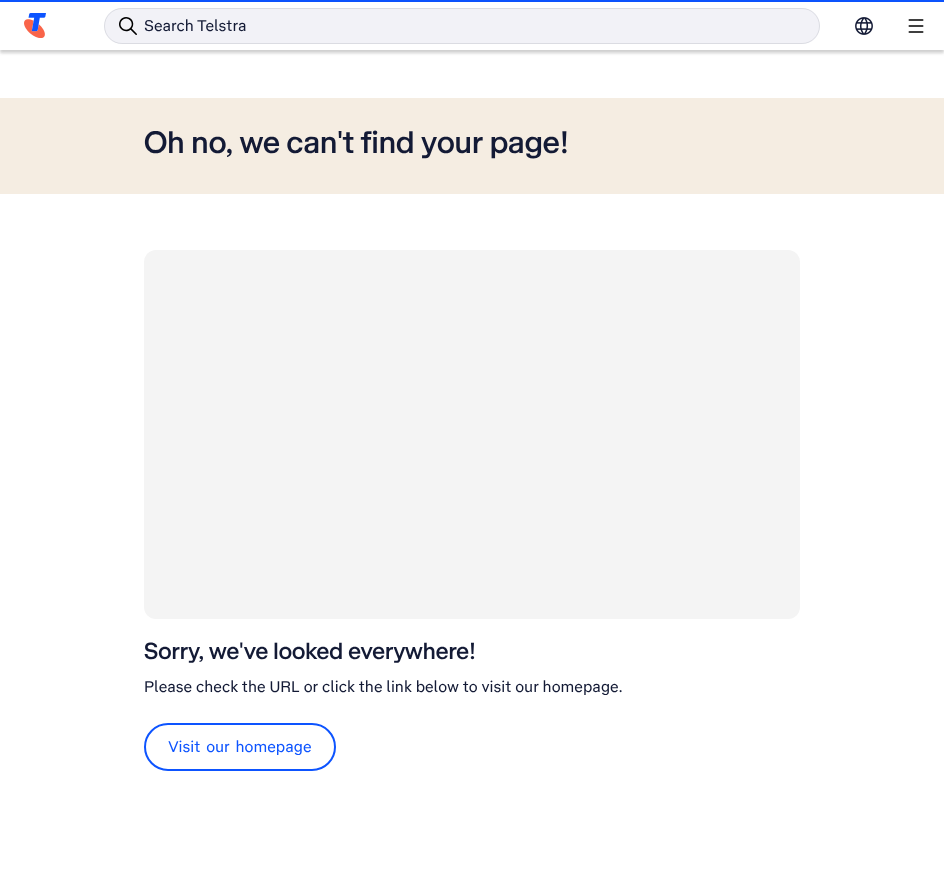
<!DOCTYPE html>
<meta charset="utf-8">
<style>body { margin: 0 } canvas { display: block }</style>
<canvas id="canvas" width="944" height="874"></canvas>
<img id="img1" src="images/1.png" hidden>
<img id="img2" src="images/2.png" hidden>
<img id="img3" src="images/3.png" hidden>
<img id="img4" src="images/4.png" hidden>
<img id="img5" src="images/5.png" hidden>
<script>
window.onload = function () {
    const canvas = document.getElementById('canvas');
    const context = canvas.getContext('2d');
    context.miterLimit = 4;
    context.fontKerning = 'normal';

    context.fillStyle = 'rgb(255, 255, 255)';
    context.fillRect(0, 0, 944, 874);
    context.fillStyle = 'rgba(5, 5, 5, 0.1)';
    context.filter = 'blur(1.5px)';
    context.beginPath();
    context.rect(0, 3, 944, 50);
    context.fill();
    context.filter = 'none';
    context.fillStyle = 'rgb(13, 84, 255)';
    context.fillRect(0, 0, 944, 2);
    context.fillStyle = 'rgba(5, 5, 5, 0.1)';
    context.filter = 'blur(1.5px)';
    context.beginPath();
    context.rect(0, 3, 944, 50);
    context.fill();
    context.filter = 'none';
    context.fillStyle = 'rgb(255, 255, 255)';
    context.fillRect(0, 2, 944, 48);
    context.drawImage(document.getElementById('img1'), 24, 13, 22, 25);
    context.fillStyle = 'rgb(242, 242, 247)';
    context.beginPath();
    context.roundRect(104, 8, 716, 36, 18);
    context.fill();
    context.beginPath();
    context.roundRect(104.5, 8.5, 715, 35, 17.5);
    context.strokeStyle = 'rgba(19, 26, 53, 0.1)';
    context.stroke();
    context.drawImage(document.getElementById('img2'), 119, 17, 18, 18);
    context.drawImage(document.getElementById('img3'), 855, 17, 18, 18);
    context.drawImage(document.getElementById('img4'), 908, 19, 16, 14);
    context.fillStyle = 'rgb(245, 237, 226)';
    context.fillRect(0, 98, 944, 96);
    context.drawImage(document.getElementById('img5'), 144, 250, 656, 369);
    context.beginPath();
    context.roundRect(145, 724, 190, 46, 23);
    context.strokeStyle = 'rgb(13, 84, 255)';
    context.lineWidth = 2;
    context.stroke();
    context.font = '16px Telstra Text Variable';
    context.fillStyle = 'rgb(19, 26, 53)';
    context.fillText('Search Telstra', 144, 31);
    context.font = '500 32px "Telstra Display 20"';
    context.fillText('Oh no, we can', 144, 153);
    context.font = '32px Liberation Sans';
    context.fillText('\'', 337, 153);
    context.font = '500 32px "Telstra Display 20"';
    context.fillText('t find your page!', 343, 153);
    context.font = '500 24px "Telstra Display 20"';
    context.fillText('Sorry, we', 144, 659);
    context.font = '24px Liberation Sans';
    context.fillText('\'', 239, 659);
    context.font = '500 24px "Telstra Display 20"';
    context.fillText('ve looked everywhere!', 244, 659);
    context.font = '16px Telstra Text Variable';
    context.fillText('Please check the URL or click the link below to visit our homepage.', 144, 692);
    context.wordSpacing = '2px';
    context.fillStyle = 'rgb(13, 84, 255)';
    context.fillText('Visit our homepage', 168, 752);
};
</script>
